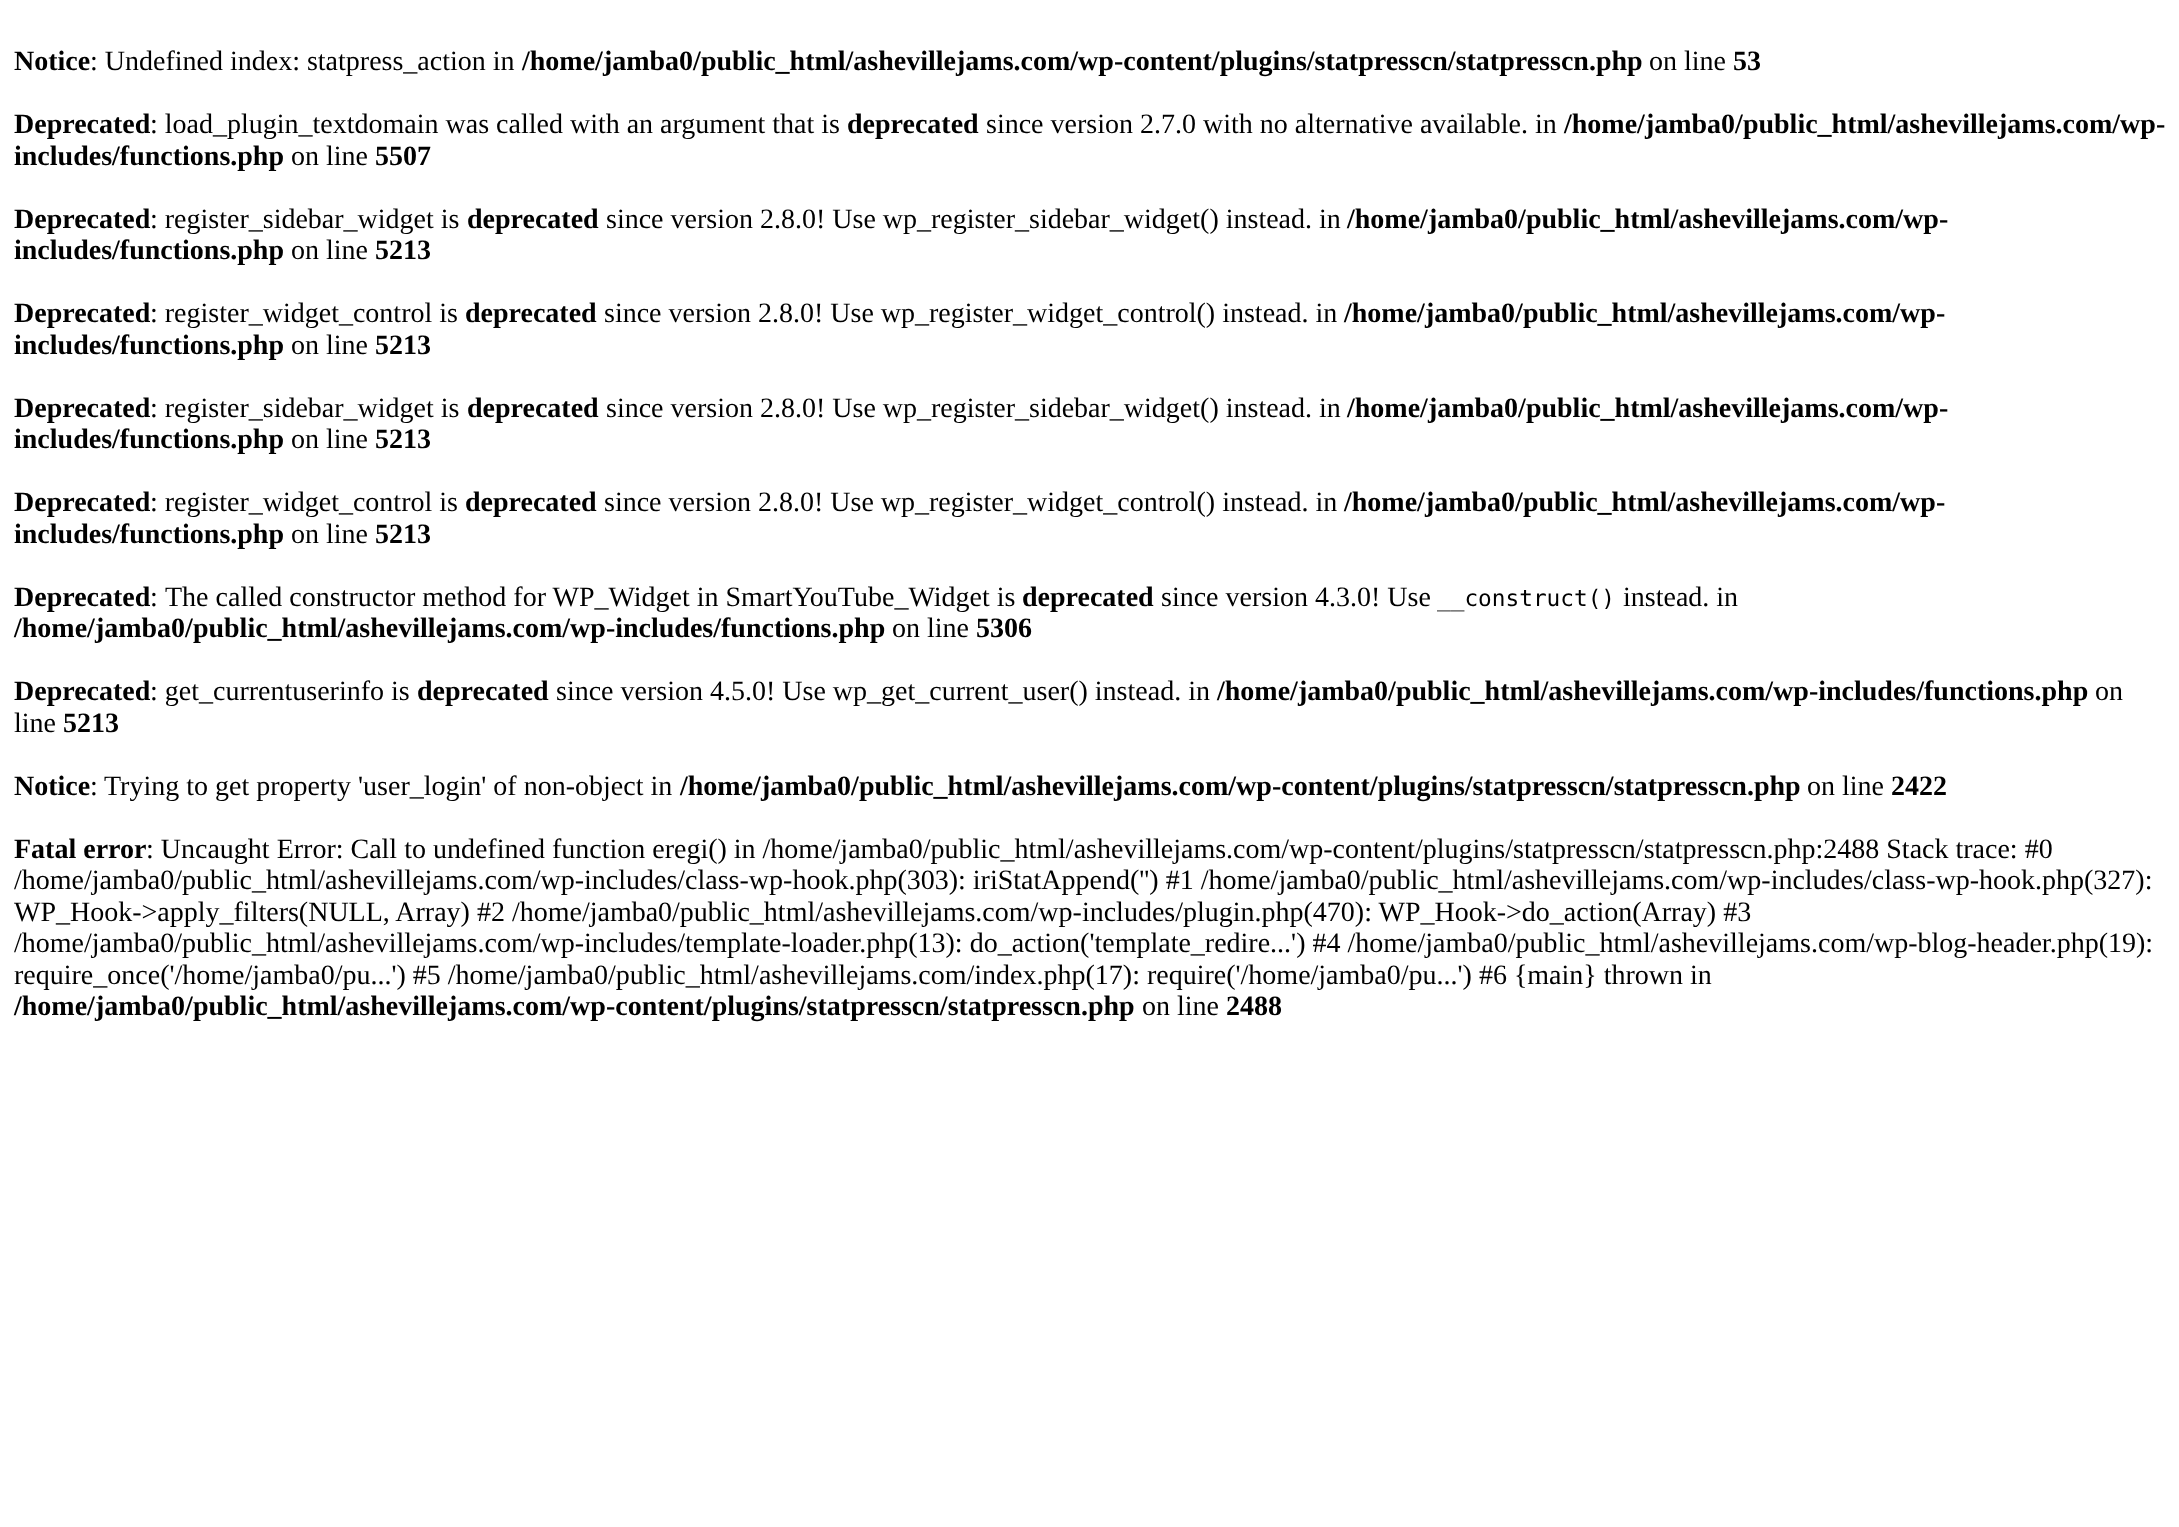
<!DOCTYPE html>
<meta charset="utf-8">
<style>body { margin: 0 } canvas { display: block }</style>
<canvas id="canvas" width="2179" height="1527"></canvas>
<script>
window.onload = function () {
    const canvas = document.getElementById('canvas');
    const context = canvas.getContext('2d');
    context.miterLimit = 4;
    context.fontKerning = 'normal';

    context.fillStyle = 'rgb(255, 255, 255)';
    context.fillRect(0, 0, 2179, 1527);
    context.font = 'bold 28px Liberation Serif';
    context.fillStyle = 'rgb(0, 0, 0)';
    context.fillText('Notice', 14, 70);
    context.font = '28px Liberation Serif';
    context.fillText(': Undefined index: statpress_action in', 90, 70);
    context.font = 'bold 28px Liberation Serif';
    context.fillText('/home/jamba0/public_html/ashevillejams.com/wp-content/plugins/statpresscn/statpresscn.php', 522, 70);
    context.font = '28px Liberation Serif';
    context.fillText('on line', 1649, 70);
    context.font = 'bold 28px Liberation Serif';
    context.fillText('53', 1733, 70);
    context.fillText('Deprecated', 14, 133);
    context.font = '28px Liberation Serif';
    context.fillText(': load_plugin_textdomain was called with an argument that is', 150, 133);
    context.font = 'bold 28px Liberation Serif';
    context.fillText('deprecated', 847, 133);
    context.font = '28px Liberation Serif';
    context.fillText('since version 2.7.0 with no alternative available. in', 986, 133);
    context.font = 'bold 28px Liberation Serif';
    context.fillText('/home/jamba0/public_html/ashevillejams.com/wp-', 1564, 133);
    context.fillText('includes/functions.php', 14, 165);
    context.font = '28px Liberation Serif';
    context.fillText('on line', 291, 165);
    context.font = 'bold 28px Liberation Serif';
    context.fillText('5507', 375, 165);
    context.fillText('Deprecated', 14, 228);
    context.font = '28px Liberation Serif';
    context.fillText(': register_sidebar_widget is', 150, 228);
    context.font = 'bold 28px Liberation Serif';
    context.fillText('deprecated', 467, 228);
    context.font = '28px Liberation Serif';
    context.fillText('since version 2.8.0! Use wp_register_sidebar_widget() instead. in', 606, 228);
    context.font = 'bold 28px Liberation Serif';
    context.fillText('/home/jamba0/public_html/ashevillejams.com/wp-', 1347, 228);
    context.fillText('includes/functions.php', 14, 259);
    context.font = '28px Liberation Serif';
    context.fillText('on line', 291, 259);
    context.font = 'bold 28px Liberation Serif';
    context.fillText('5213', 375, 259);
    context.fillText('Deprecated', 14, 322);
    context.font = '28px Liberation Serif';
    context.fillText(': register_widget_control is', 150, 322);
    context.font = 'bold 28px Liberation Serif';
    context.fillText('deprecated', 465, 322);
    context.font = '28px Liberation Serif';
    context.fillText('since version 2.8.0! Use wp_register_widget_control() instead. in', 604, 322);
    context.font = 'bold 28px Liberation Serif';
    context.fillText('/home/jamba0/public_html/ashevillejams.com/wp-', 1344, 322);
    context.fillText('includes/functions.php', 14, 354);
    context.font = '28px Liberation Serif';
    context.fillText('on line', 291, 354);
    context.font = 'bold 28px Liberation Serif';
    context.fillText('5213', 375, 354);
    context.fillText('Deprecated', 14, 417);
    context.font = '28px Liberation Serif';
    context.fillText(': register_sidebar_widget is', 150, 417);
    context.font = 'bold 28px Liberation Serif';
    context.fillText('deprecated', 467, 417);
    context.font = '28px Liberation Serif';
    context.fillText('since version 2.8.0! Use wp_register_sidebar_widget() instead. in', 606, 417);
    context.font = 'bold 28px Liberation Serif';
    context.fillText('/home/jamba0/public_html/ashevillejams.com/wp-', 1347, 417);
    context.fillText('includes/functions.php', 14, 448);
    context.font = '28px Liberation Serif';
    context.fillText('on line', 291, 448);
    context.font = 'bold 28px Liberation Serif';
    context.fillText('5213', 375, 448);
    context.fillText('Deprecated', 14, 511);
    context.font = '28px Liberation Serif';
    context.fillText(': register_widget_control is', 150, 511);
    context.font = 'bold 28px Liberation Serif';
    context.fillText('deprecated', 465, 511);
    context.font = '28px Liberation Serif';
    context.fillText('since version 2.8.0! Use wp_register_widget_control() instead. in', 604, 511);
    context.font = 'bold 28px Liberation Serif';
    context.fillText('/home/jamba0/public_html/ashevillejams.com/wp-', 1344, 511);
    context.fillText('includes/functions.php', 14, 543);
    context.font = '28px Liberation Serif';
    context.fillText('on line', 291, 543);
    context.font = 'bold 28px Liberation Serif';
    context.fillText('5213', 375, 543);
    context.fillText('Deprecated', 14, 606);
    context.font = '28px Liberation Serif';
    context.fillText(':', 150, 606);
    context.fillText('The called constructor method for WP_Widget in SmartYouTube_Widget is', 165, 606);
    context.font = 'bold 28px Liberation Serif';
    context.fillText('deprecated', 1022, 606);
    context.font = '28px Liberation Serif';
    context.fillText('since version 4.3.0! Use', 1161, 606);
    context.font = '22.75px DejaVu Sans Mono';
    context.fillText('__construct()', 1437, 606);
    context.font = '28px Liberation Serif';
    context.fillText('instead. in', 1623, 606);
    context.font = 'bold 28px Liberation Serif';
    context.fillText('/home/jamba0/public_html/ashevillejams.com/wp-includes/functions.php', 14, 637);
    context.font = '28px Liberation Serif';
    context.fillText('on line', 892, 637);
    context.font = 'bold 28px Liberation Serif';
    context.fillText('5306', 976, 637);
    context.fillText('Deprecated', 14, 700);
    context.font = '28px Liberation Serif';
    context.fillText(': get_currentuserinfo is', 150, 700);
    context.font = 'bold 28px Liberation Serif';
    context.fillText('deprecated', 417, 700);
    context.font = '28px Liberation Serif';
    context.fillText('since version 4.5.0! Use wp_get_current_user() instead. in', 556, 700);
    context.font = 'bold 28px Liberation Serif';
    context.fillText('/home/jamba0/public_html/ashevillejams.com/wp-includes/functions.php', 1217, 700);
    context.font = '28px Liberation Serif';
    context.fillText('on', 2095, 700);
    context.fillText('line', 14, 732);
    context.font = 'bold 28px Liberation Serif';
    context.fillText('5213', 63, 732);
    context.fillText('Notice', 14, 795);
    context.font = '28px Liberation Serif';
    context.fillText(':', 90, 795);
    context.fillText('Trying to get property \'user_login\' of non-object in', 104, 795);
    context.font = 'bold 28px Liberation Serif';
    context.fillText('/home/jamba0/public_html/ashevillejams.com/wp-content/plugins/statpresscn/statpresscn.php', 680, 795);
    context.font = '28px Liberation Serif';
    context.fillText('on line', 1807, 795);
    context.font = 'bold 28px Liberation Serif';
    context.fillText('2422', 1891, 795);
    context.fillText('Fatal error', 14, 858);
    context.font = '28px Liberation Serif';
    context.fillText(': Uncaught Error: Call to undefined function eregi() in /home/jamba0/public_html/ashevillejams.com/wp-content/plugins/statpresscn/statpresscn.php:2488 Stack trace: #0', 146, 858);
    context.fillText('/home/jamba0/public_html/ashevillejams.com/wp-includes/class-wp-hook.php(303): iriStatAppend(\'\') #1 /home/jamba0/public_html/ashevillejams.com/wp-includes/class-wp-hook.php(327):', 14, 889);
    context.fillText('WP_Hook->apply_filters(NULL, Array) #2 /home/jamba0/public_html/ashevillejams.com/wp-includes/plugin.php(470): WP_Hook->do_action(Array) #3', 14, 921);
    context.fillText('/home/jamba0/public_html/ashevillejams.com/wp-includes/template-loader.php(13): do_action(\'template_redire...\') #4 /home/jamba0/public_html/ashevillejams.com/wp-blog-header.php(19):', 14, 952);
    context.fillText('require_once(\'/home/jamba0/pu...\') #5 /home/jamba0/public_html/ashevillejams.com/index.php(17): require(\'/home/jamba0/pu...\') #6 {main} thrown in', 14, 984);
    context.font = 'bold 28px Liberation Serif';
    context.fillText('/home/jamba0/public_html/ashevillejams.com/wp-content/plugins/statpresscn/statpresscn.php', 14, 1015);
    context.font = '28px Liberation Serif';
    context.fillText('on line', 1142, 1015);
    context.font = 'bold 28px Liberation Serif';
    context.fillText('2488', 1226, 1015);
};
</script>
